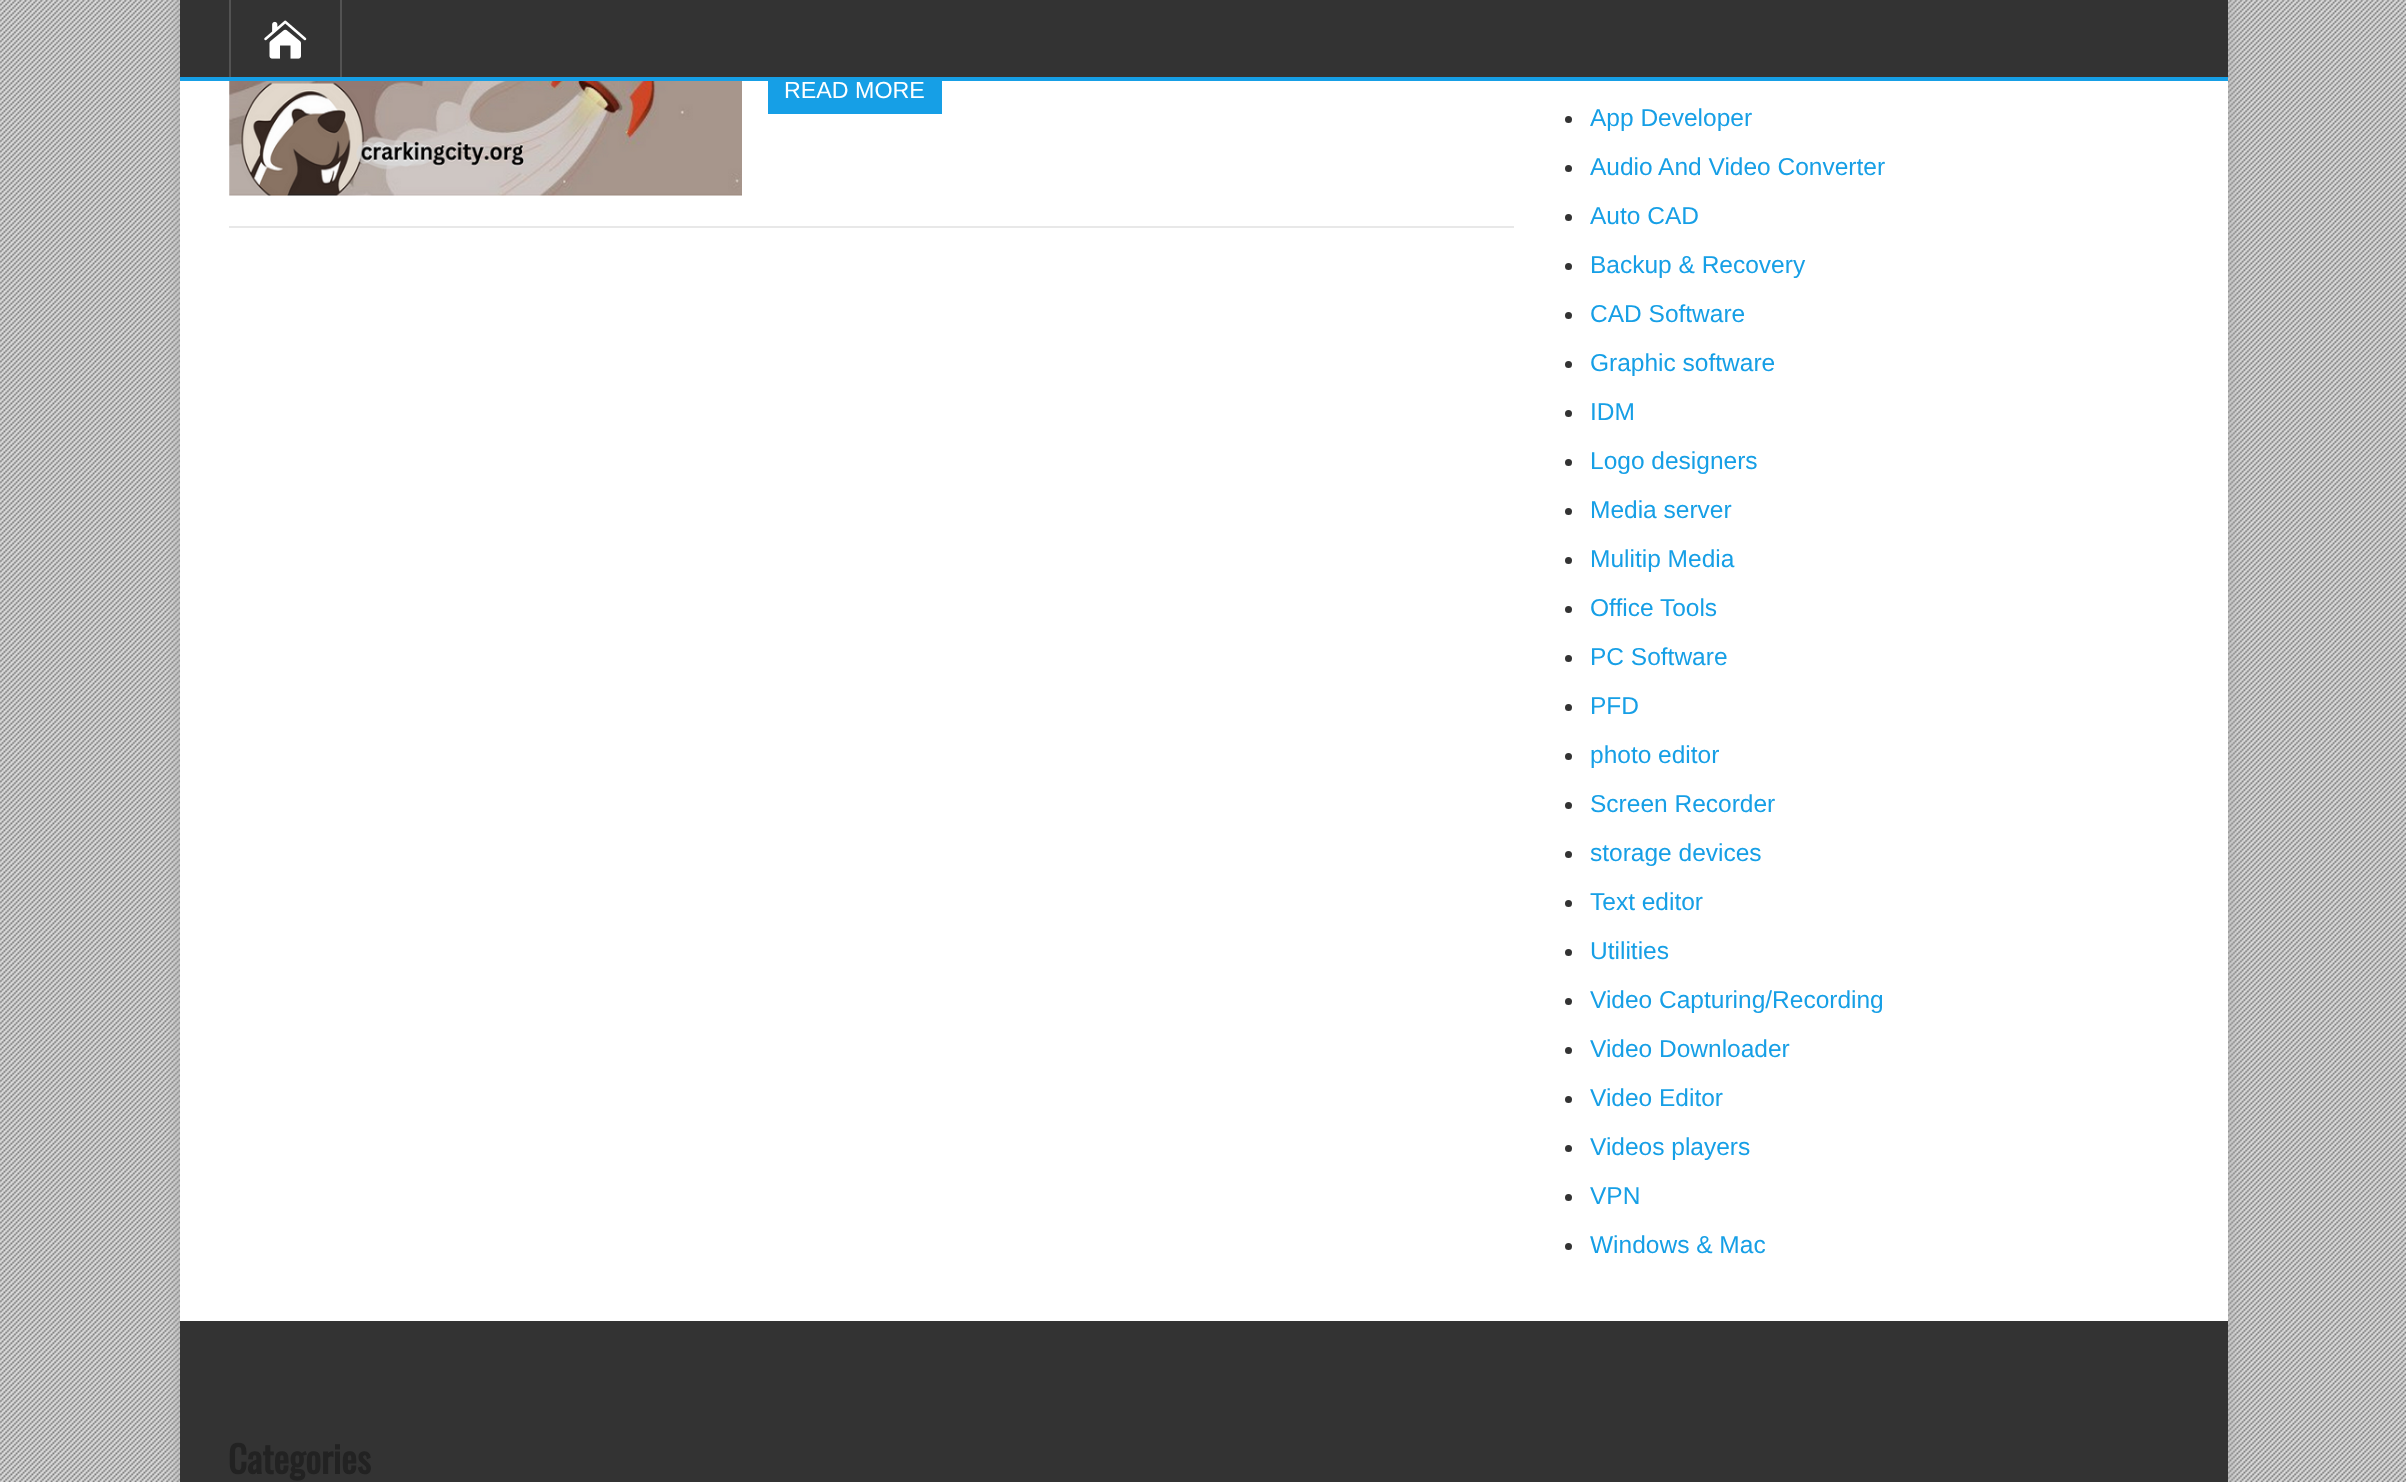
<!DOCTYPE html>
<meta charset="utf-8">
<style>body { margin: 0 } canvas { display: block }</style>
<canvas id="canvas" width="2406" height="1482"></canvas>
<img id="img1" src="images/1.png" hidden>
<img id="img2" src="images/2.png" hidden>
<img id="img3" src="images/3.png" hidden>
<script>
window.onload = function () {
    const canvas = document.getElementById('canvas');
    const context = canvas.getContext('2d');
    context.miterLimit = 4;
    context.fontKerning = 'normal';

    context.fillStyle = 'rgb(222, 222, 222)';
    context.fillRect(0, 0, 2406, 1482);
    context.drawImage(document.getElementById('img1'), 0, 0, 2406, 1482);
    context.fillStyle = 'rgb(170, 170, 170)';
    context.filter = 'blur(9px)';
    context.beginPath();
    context.rect(180, -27, 2048, 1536);
    context.fill();
    context.filter = 'none';
    context.fillStyle = 'rgb(255, 255, 255)';
    context.fillRect(180, 81, 2048, 1240);
    context.fillStyle = 'rgb(51, 51, 51)';
    context.fillRect(180, 0, 2048, 77);
    context.fillStyle = 'rgb(22, 159, 230)';
    context.fillRect(180, 77, 2048, 4);
    context.fillStyle = 'rgb(83, 83, 83)';
    context.fillRect(340, 0, 2, 77);
    context.fillRect(229, 0, 2, 77);
    context.drawImage(document.getElementById('img2'), 264, 20, 43, 39);
    context.fillStyle = 'rgb(232, 232, 232)';
    context.fillRect(229, 226, 1285, 2);
    context.drawImage(document.getElementById('img3'), 229, 81, 513, 115);
    context.fillStyle = 'rgb(22, 159, 230)';
    context.fillRect(768, 81, 174, 33);
    context.fillStyle = 'rgb(51, 51, 51)';
    context.beginPath();
    context.arc(1568.5, 119.5, 3.5, 0, 2 * Math.PI);
    context.fill();
    context.beginPath();
    context.arc(1568.5, 168.5, 3.5, 0, 2 * Math.PI);
    context.fill();
    context.beginPath();
    context.arc(1568.5, 217.5, 3.5, 0, 2 * Math.PI);
    context.fill();
    context.beginPath();
    context.arc(1568.5, 266.5, 3.5, 0, 2 * Math.PI);
    context.fill();
    context.beginPath();
    context.arc(1568.5, 315.5, 3.5, 0, 2 * Math.PI);
    context.fill();
    context.beginPath();
    context.arc(1568.5, 364.5, 3.5, 0, 2 * Math.PI);
    context.fill();
    context.beginPath();
    context.arc(1568.5, 413.5, 3.5, 0, 2 * Math.PI);
    context.fill();
    context.beginPath();
    context.arc(1568.5, 462.5, 3.5, 0, 2 * Math.PI);
    context.fill();
    context.beginPath();
    context.arc(1568.5, 511.5, 3.5, 0, 2 * Math.PI);
    context.fill();
    context.beginPath();
    context.arc(1568.5, 560.5, 3.5, 0, 2 * Math.PI);
    context.fill();
    context.beginPath();
    context.arc(1568.5, 609.5, 3.5, 0, 2 * Math.PI);
    context.fill();
    context.beginPath();
    context.arc(1568.5, 658.5, 3.5, 0, 2 * Math.PI);
    context.fill();
    context.beginPath();
    context.arc(1568.5, 707.5, 3.5, 0, 2 * Math.PI);
    context.fill();
    context.beginPath();
    context.arc(1568.5, 756.5, 3.5, 0, 2 * Math.PI);
    context.fill();
    context.beginPath();
    context.arc(1568.5, 805.5, 3.5, 0, 2 * Math.PI);
    context.fill();
    context.beginPath();
    context.arc(1568.5, 854.5, 3.5, 0, 2 * Math.PI);
    context.fill();
    context.beginPath();
    context.arc(1568.5, 903.5, 3.5, 0, 2 * Math.PI);
    context.fill();
    context.beginPath();
    context.arc(1568.5, 952.5, 3.5, 0, 2 * Math.PI);
    context.fill();
    context.beginPath();
    context.arc(1568.5, 1001.5, 3.5, 0, 2 * Math.PI);
    context.fill();
    context.beginPath();
    context.arc(1568.5, 1050.5, 3.5, 0, 2 * Math.PI);
    context.fill();
    context.beginPath();
    context.arc(1568.5, 1099.5, 3.5, 0, 2 * Math.PI);
    context.fill();
    context.beginPath();
    context.arc(1568.5, 1148.5, 3.5, 0, 2 * Math.PI);
    context.fill();
    context.beginPath();
    context.arc(1568.5, 1197.5, 3.5, 0, 2 * Math.PI);
    context.fill();
    context.beginPath();
    context.arc(1568.5, 1246.5, 3.5, 0, 2 * Math.PI);
    context.fill();
    context.fillRect(180, 1321, 2048, 161);
    context.font = '23.25px Liberation Sans';
    context.fillStyle = 'rgb(255, 255, 255)';
    context.fillText('READ MORE', 784, 98);
    context.font = '24.5px Liberation Sans';
    context.fillStyle = 'rgb(22, 159, 230)';
    context.fillText('App Developer', 1590, 126);
    context.fillText('Audio And Video Converter', 1590, 175);
    context.fillText('Auto CAD', 1590, 224);
    context.fillText('Backup & Recovery', 1590, 273);
    context.fillText('CAD Software', 1590, 322);
    context.fillText('Graphic software', 1590, 371);
    context.fillText('IDM', 1590, 420);
    context.fillText('Logo designers', 1590, 469);
    context.fillText('Media server', 1590, 518);
    context.fillText('Mulitip Media', 1590, 567);
    context.fillText('Office Tools', 1590, 616);
    context.fillText('PC Software', 1590, 665);
    context.fillText('PFD', 1590, 714);
    context.fillText('photo editor', 1590, 763);
    context.fillText('Screen Recorder', 1590, 812);
    context.fillText('storage devices', 1590, 861);
    context.fillText('Text editor', 1590, 910);
    context.fillText('Utilities', 1590, 959);
    context.fillText('Video Capturing/Recording', 1590, 1008);
    context.fillText('Video Downloader', 1590, 1057);
    context.fillText('Video Editor', 1590, 1106);
    context.fillText('Videos players', 1590, 1155);
    context.fillText('VPN', 1590, 1204);
    context.fillText('Windows & Mac', 1590, 1253);
    context.font = 'bold 37px Oswald';
    context.fillStyle = 'rgb(34, 34, 34)';
    context.fillText('Categories', 228, 1474);
};
</script>
